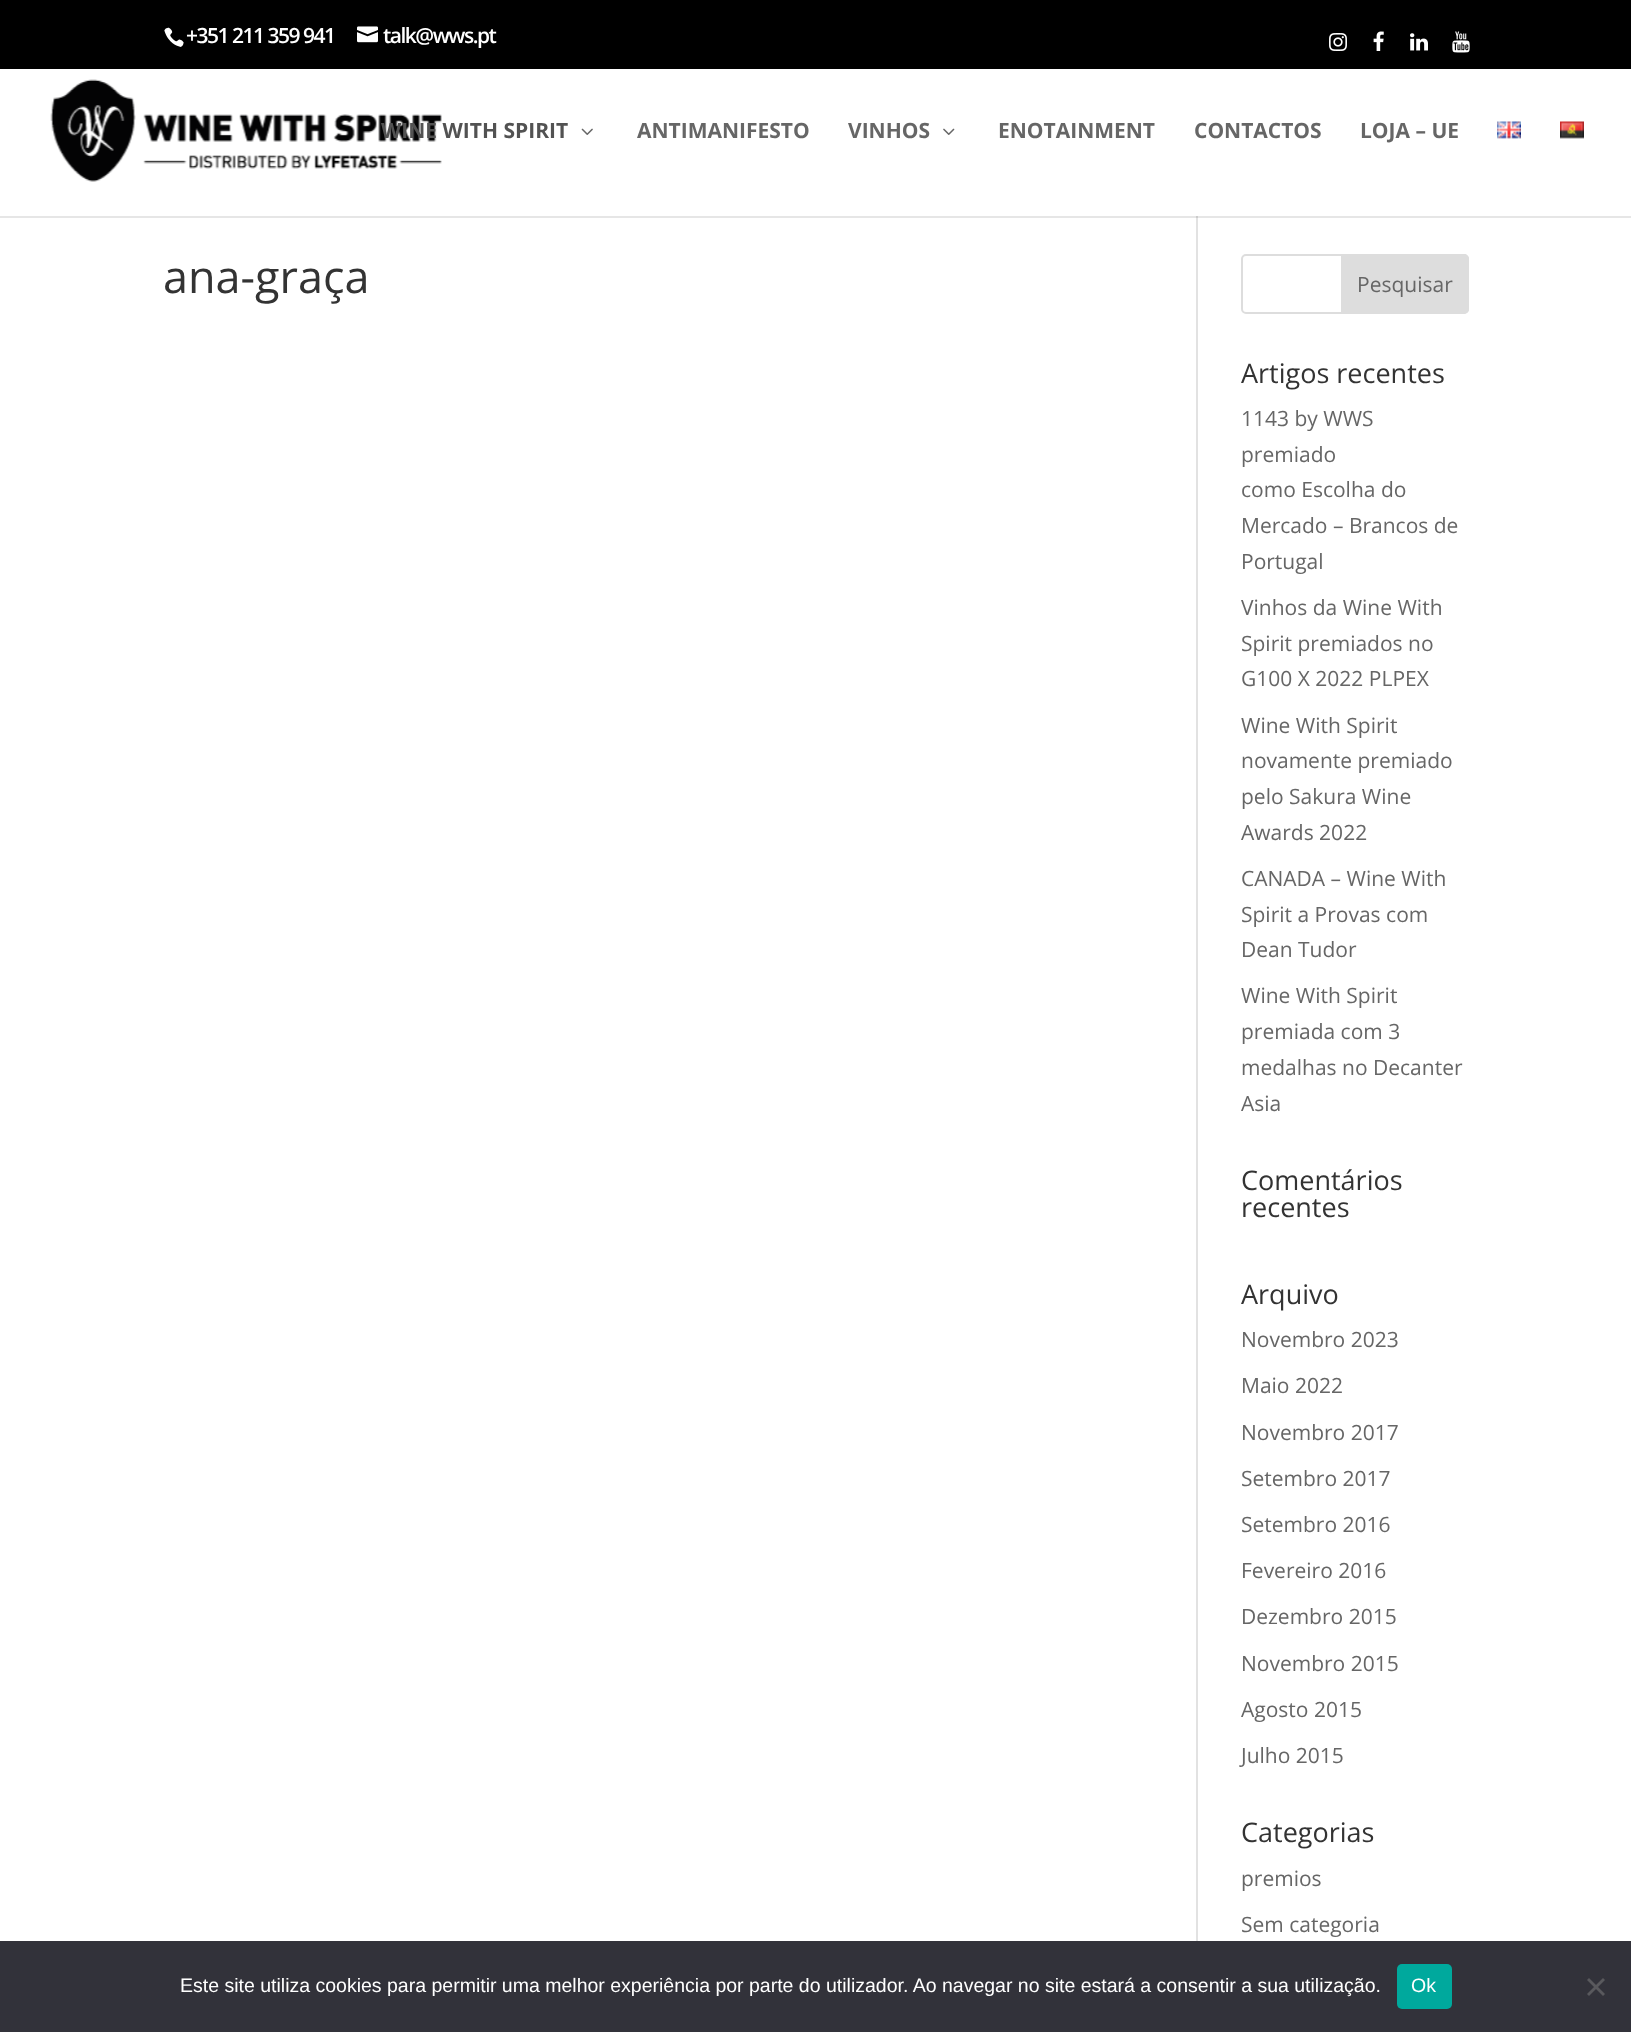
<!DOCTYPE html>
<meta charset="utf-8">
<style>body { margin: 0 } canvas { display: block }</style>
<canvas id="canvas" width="1631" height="2032"></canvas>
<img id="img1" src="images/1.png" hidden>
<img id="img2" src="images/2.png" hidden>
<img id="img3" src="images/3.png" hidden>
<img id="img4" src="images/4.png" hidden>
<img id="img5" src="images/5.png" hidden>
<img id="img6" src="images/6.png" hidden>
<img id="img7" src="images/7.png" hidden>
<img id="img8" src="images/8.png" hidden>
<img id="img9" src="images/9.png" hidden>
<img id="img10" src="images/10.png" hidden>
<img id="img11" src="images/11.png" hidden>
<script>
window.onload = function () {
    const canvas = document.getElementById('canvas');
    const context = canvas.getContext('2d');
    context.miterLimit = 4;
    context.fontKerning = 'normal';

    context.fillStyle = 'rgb(255, 255, 255)';
    context.fillRect(0, 0, 1631, 2032);
    context.fillStyle = 'rgb(230, 230, 230)';
    context.fillRect(0, 216, 1631, 2);
    context.fillStyle = 'rgb(0, 0, 0)';
    context.fillRect(0, 0, 1631, 69);
    context.drawImage(document.getElementById('img1'), 164, 27, 20, 20);
    context.drawImage(document.getElementById('img2'), 357, 26, 21, 17);
    context.drawImage(document.getElementById('img3'), 1329, 33, 18, 18);
    context.drawImage(document.getElementById('img4'), 1373, 31, 11, 20);
    context.drawImage(document.getElementById('img5'), 1410, 33, 18, 18);
    context.drawImage(document.getElementById('img6'), 1452, 31, 18, 22);
    context.drawImage(document.getElementById('img7'), 50, 79, 392, 103);
    context.drawImage(document.getElementById('img8'), 581, 128, 12, 7);
    context.drawImage(document.getElementById('img9'), 943, 128, 12, 7);
    context.drawImage(document.getElementById('img10'), 1497, 121, 24, 18);
    context.drawImage(document.getElementById('img11'), 1560, 121, 24, 18);
    context.fillStyle = 'rgb(226, 226, 226)';
    context.fillRect(1196, 218, 2, 1723);
    context.fillStyle = 'rgb(203, 203, 203)';
    context.fillRect(1196, 216, 2, 2);
    context.beginPath();
    context.roundRect(1242, 255, 226, 58, 4);
    context.strokeStyle = 'rgb(221, 221, 221)';
    context.lineWidth = 2;
    context.stroke();
    context.fillStyle = 'rgb(221, 221, 221)';
    context.beginPath();
    context.roundRect(1342, 255, 126, 58, [0, 4, 4, 0]);
    context.fill();
    context.stroke();
    context.fillStyle = 'rgb(50, 50, 58)';
    context.fillRect(0, 1941, 1631, 91);
    context.fillStyle = 'rgb(0, 169, 157)';
    context.beginPath();
    context.roundRect(1397, 1964, 55, 45, 5);
    context.fill();
    context.fillStyle = 'rgb(89, 89, 93)';
    context.beginPath();
    context.moveTo(1603, 1978);
    context.lineTo(1605, 1980);
    context.lineTo(1589, 1996);
    context.lineTo(1587, 1994);
    context.closePath();
    context.fill();
    context.beginPath();
    context.moveTo(1587, 1980);
    context.lineTo(1589, 1978);
    context.lineTo(1605, 1994);
    context.lineTo(1603, 1996);
    context.closePath();
    context.fill();
    context.letterSpacing = '-1.5px';
    context.font = '600 21px Open Sans';
    context.fillStyle = 'rgb(255, 255, 255)';
    context.fillText('+351 211 359 941', 186, 43);
    context.fillText('talk@wws.pt', 383, 43);
    context.letterSpacing = '0px';
    context.font = 'bold 21px Open Sans';
    context.fillStyle = 'rgb(82, 82, 82)';
    context.fillText('WINE WITH SPIRIT', 381, 138);
    context.fillStyle = 'rgb(102, 102, 102)';
    context.fillText('ANTIMANIFESTO', 637, 138);
    context.fillText('VINHOS', 848, 138);
    context.fillText('ENOTAINMENT', 998, 138);
    context.fillText('CONTACTOS', 1194, 138);
    context.fillText('LOJA – UE', 1360, 138);
    context.font = '45px Open Sans';
    context.fillStyle = 'rgb(51, 51, 51)';
    context.fillText('ana-graça', 163, 293);
    context.font = '21px Open Sans';
    context.fillStyle = 'rgb(102, 102, 102)';
    context.fillText('Pesquisar', 1357, 292);
    context.font = '27px Open Sans';
    context.fillStyle = 'rgb(51, 51, 51)';
    context.fillText('Artigos recentes', 1241, 383);
    context.font = '21px Open Sans';
    context.fillStyle = 'rgb(102, 102, 102)';
    context.fillText('1143 by WWS', 1241, 426);
    context.fillText('premiado', 1241, 462);
    context.fillText('como Escolha do', 1241, 497);
    context.fillText('Mercado – Brancos de', 1241, 533);
    context.fillText('Portugal', 1241, 569);
    context.fillText('Vinhos da Wine With', 1241, 615);
    context.fillText('Spirit premiados no', 1241, 651);
    context.fillText('G100 X 2022 PLPEX', 1241, 686);
    context.fillText('Wine With Spirit', 1241, 733);
    context.fillText('novamente premiado', 1241, 768);
    context.fillText('pelo Sakura Wine', 1241, 804);
    context.fillText('Awards 2022', 1241, 840);
    context.fillText('CANADA – Wine With', 1241, 886);
    context.fillText('Spirit a Provas com', 1241, 922);
    context.fillText('Dean Tudor', 1241, 957);
    context.fillText('Wine With Spirit', 1241, 1003);
    context.fillText('premiada com 3', 1241, 1039);
    context.fillText('medalhas no Decanter', 1241, 1075);
    context.fillText('Asia', 1241, 1111);
    context.font = '27px Open Sans';
    context.fillStyle = 'rgb(51, 51, 51)';
    context.fillText('Comentários', 1241, 1190);
    context.fillText('recentes', 1241, 1217);
    context.fillText('Arquivo', 1241, 1304);
    context.font = '21px Open Sans';
    context.fillStyle = 'rgb(102, 102, 102)';
    context.fillText('Novembro 2023', 1241, 1347);
    context.fillText('Maio 2022', 1241, 1393);
    context.fillText('Novembro 2017', 1241, 1440);
    context.fillText('Setembro 2017', 1241, 1486);
    context.fillText('Setembro 2016', 1241, 1532);
    context.fillText('Fevereiro 2016', 1241, 1578);
    context.fillText('Dezembro 2015', 1241, 1624);
    context.fillText('Novembro 2015', 1241, 1671);
    context.fillText('Agosto 2015', 1241, 1717);
    context.fillText('Julho 2015', 1241, 1763);
    context.font = '27px Open Sans';
    context.fillStyle = 'rgb(51, 51, 51)';
    context.fillText('Categorias', 1241, 1842);
    context.font = '21px Open Sans';
    context.fillStyle = 'rgb(102, 102, 102)';
    context.fillText('premios', 1241, 1886);
    context.fillText('Sem categoria', 1241, 1932);
    context.font = '19.5px Liberation Sans';
    context.fillStyle = 'rgb(255, 255, 255)';
    context.fillText('Este site utiliza cookies para permitir uma melhor experiência por parte do utilizador. Ao navegar no site estará a consentir a sua utilização.', 180, 1992);
    context.fillText('Ok', 1411, 1992);
};
</script>
